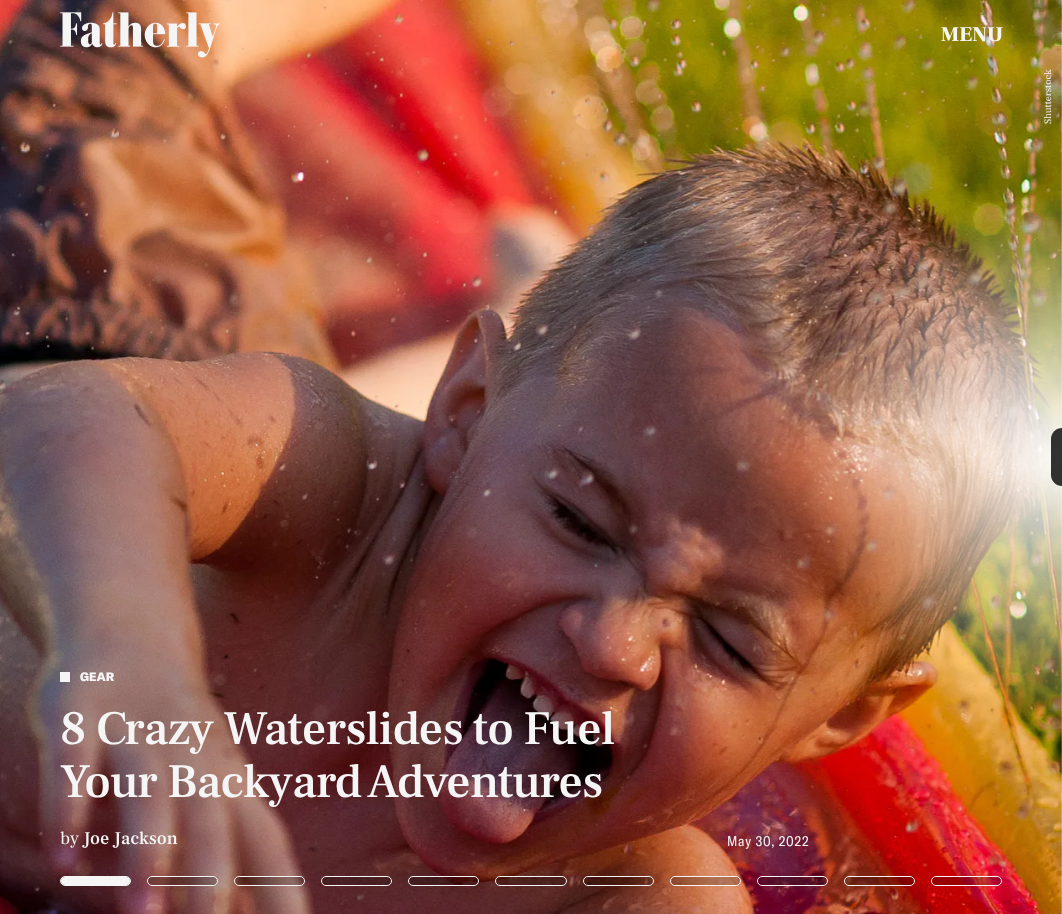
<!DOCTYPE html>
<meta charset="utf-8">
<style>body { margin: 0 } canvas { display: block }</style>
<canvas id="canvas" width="1062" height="914"></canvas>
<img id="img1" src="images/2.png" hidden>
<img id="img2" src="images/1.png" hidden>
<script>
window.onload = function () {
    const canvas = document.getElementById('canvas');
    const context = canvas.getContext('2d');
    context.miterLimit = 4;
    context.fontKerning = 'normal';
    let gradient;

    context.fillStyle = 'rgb(255, 255, 255)';
    context.fillRect(0, 0, 1062, 914);
    context.drawImage(document.getElementById('img1'), 0, 0, 1062, 914);
    context.drawImage(document.getElementById('img2'), 60, 12, 160, 46);
    context.fillStyle = 'rgb(245, 245, 245)';
    context.fillRect(60, 672, 10, 10);
    gradient = context.createRadialGradient(1062, 457, 0, 1062, 457, 1062);
    gradient.addColorStop(0, 'rgb(255, 255, 255)');
    gradient.addColorStop(0.25, 'rgba(255, 255, 255, 0)');
    context.fillStyle = gradient;
    context.fillRect(801, 198, 261, 518);
    context.fillStyle = 'rgba(0, 0, 0, 0.8)';
    context.beginPath();
    context.roundRect(1051, 428, 11, 58, [15, 0, 0, 15]);
    context.fill();
    context.beginPath();
    context.roundRect(60.5, 876.5, 70, 9, 4.5);
    context.strokeStyle = 'rgb(245, 245, 245)';
    context.stroke();
    context.fillStyle = 'rgb(245, 245, 245)';
    context.beginPath();
    context.roundRect(61, 877, 69, 8, 4);
    context.fill();
    context.fillStyle = 'rgba(0, 0, 0, 0.2)';
    context.beginPath();
    context.roundRect(147.5, 876.5, 70, 9, 4.5);
    context.fill();
    context.stroke();
    context.beginPath();
    context.roundRect(234.5, 876.5, 70, 9, 4.5);
    context.fill();
    context.stroke();
    context.beginPath();
    context.roundRect(321.5, 876.5, 70, 9, 4.5);
    context.fill();
    context.stroke();
    context.beginPath();
    context.roundRect(408.5, 876.5, 70, 9, 4.5);
    context.fill();
    context.stroke();
    context.beginPath();
    context.roundRect(495.5, 876.5, 71, 9, 4.5);
    context.fill();
    context.stroke();
    context.beginPath();
    context.roundRect(583.5, 876.5, 70, 9, 4.5);
    context.fill();
    context.stroke();
    context.beginPath();
    context.roundRect(670.5, 876.5, 70, 9, 4.5);
    context.fill();
    context.stroke();
    context.beginPath();
    context.roundRect(757.5, 876.5, 70, 9, 4.5);
    context.fill();
    context.stroke();
    context.beginPath();
    context.roundRect(844.5, 876.5, 70, 9, 4.5);
    context.fill();
    context.stroke();
    context.beginPath();
    context.roundRect(931.5, 876.5, 70, 9, 4.5);
    context.fill();
    context.stroke();
    context.font = '900 21px Frank Ruhl Libre';
    context.fillStyle = 'rgb(245, 245, 245)';
    context.fillText('MENU', 941, 41);
    context.font = '10px Frank Ruhl Libre';
    context.save();
    context.translate(1051, 124);
    context.rotate(-90 * Math.PI / 180);
    context.fillText('Shutterstock', 0, 0);
    context.restore();
    context.font = '900 12px GT America';
    context.fillText('GEAR', 80, 681);
    context.letterSpacing = '-0.95px';
    context.font = '500 48px Frank Ruhl Libre';
    context.fillText('8 Crazy Waterslides to Fuel', 60, 744);
    context.fillText('Your Backyard Adventures', 60, 797);
    context.letterSpacing = '0px';
    context.font = '18px Frank Ruhl Libre';
    context.fillText('by', 60, 844);
    context.font = '500 18px Frank Ruhl Libre';
    context.fillText('Joe Jackson', 83, 844);
    context.letterSpacing = '0.75px';
    context.font = '14px GT America';
    context.fillText('May 30, 2022', 727, 846);
};
</script>
